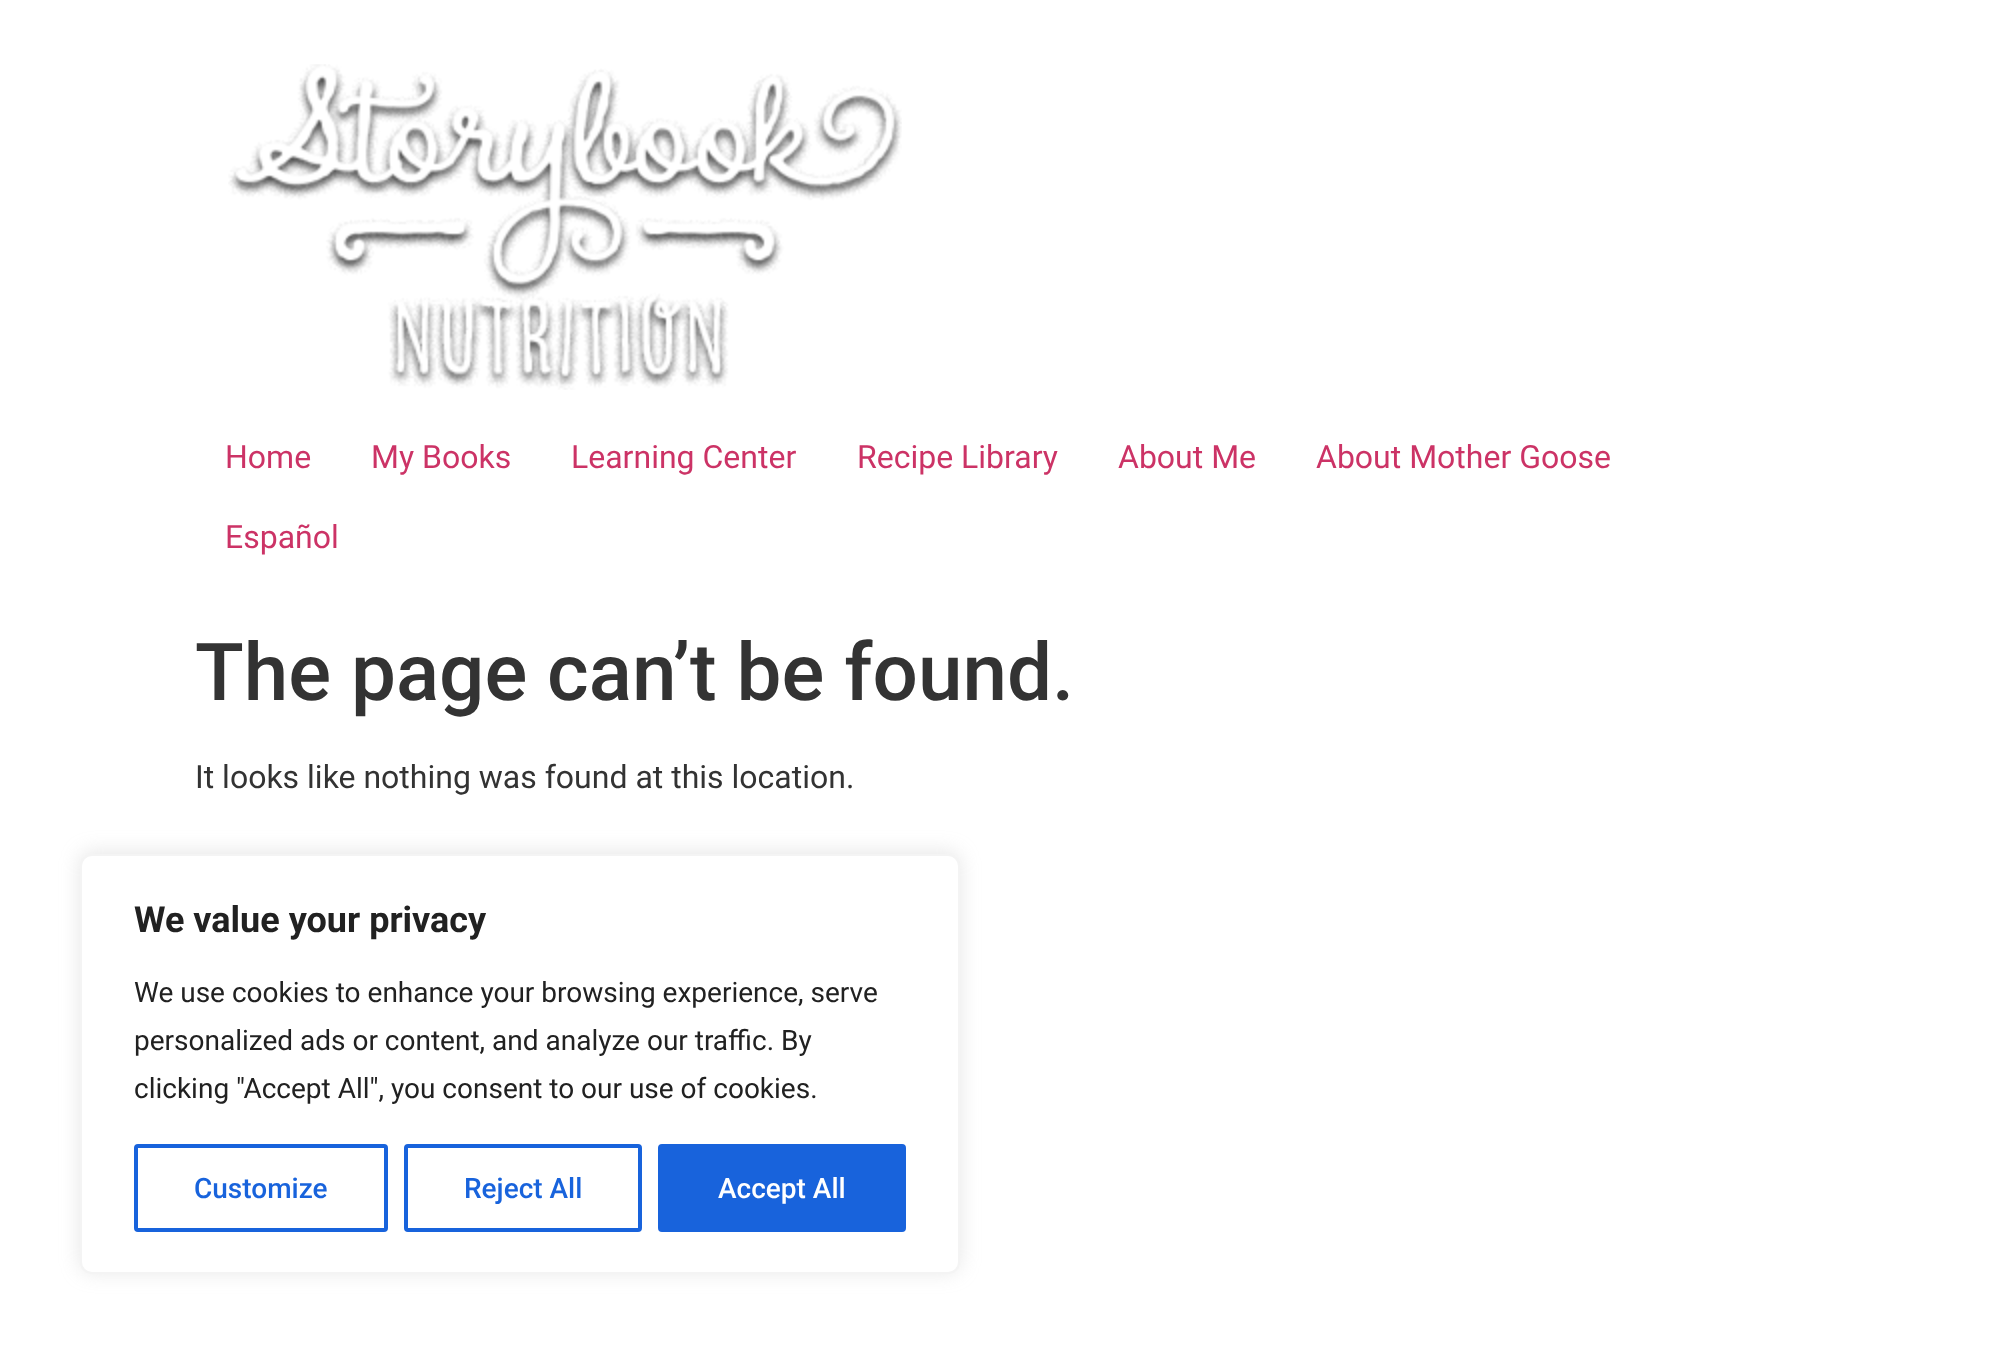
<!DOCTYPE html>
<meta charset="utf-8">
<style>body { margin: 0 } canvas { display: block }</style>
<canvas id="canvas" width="1990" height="1353"></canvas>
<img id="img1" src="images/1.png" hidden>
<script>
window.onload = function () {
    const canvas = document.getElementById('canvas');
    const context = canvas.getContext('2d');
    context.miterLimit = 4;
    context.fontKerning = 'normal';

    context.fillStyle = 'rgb(255, 255, 255)';
    context.fillRect(0, 0, 1990, 1353);
    context.drawImage(document.getElementById('img1'), 228, 64, 674, 326);
    context.fillStyle = 'rgba(172, 171, 171, 0.3)';
    context.filter = 'blur(10px)';
    context.beginPath();
    context.roundRect(80, 852, 880, 420, 12);
    context.fill();
    context.filter = 'none';
    context.fillStyle = 'rgb(255, 255, 255)';
    context.beginPath();
    context.roundRect(81, 855, 878, 418, 11);
    context.fill();
    context.strokeStyle = 'rgb(244, 244, 244)';
    context.lineWidth = 2;
    context.stroke();
    context.beginPath();
    context.roundRect(136, 1146, 250, 84, 2);
    context.strokeStyle = 'rgb(24, 99, 220)';
    context.lineWidth = 4;
    context.stroke();
    context.beginPath();
    context.roundRect(406, 1146, 234, 84, 2);
    context.stroke();
    context.fillStyle = 'rgb(24, 99, 220)';
    context.beginPath();
    context.roundRect(660, 1146, 244, 84, 2);
    context.fill();
    context.stroke();
    context.font = '32px Roboto';
    context.fillStyle = 'rgb(204, 51, 102)';
    context.fillText('Home', 225, 468);
    context.fillText('My Books', 371, 468);
    context.fillText('Learning Center', 571, 468);
    context.fillText('Recipe Library', 857, 468);
    context.fillText('About Me', 1118, 468);
    context.fillText('About Mother Goose', 1316, 468);
    context.fillText('Español', 225, 548);
    context.font = '500 80px Roboto';
    context.fillStyle = 'rgb(51, 51, 51)';
    context.fillText('The page can’t be found.', 195, 700);
    context.font = '32px Roboto';
    context.fillText('It looks like nothing was found at this location.', 195, 788);
    context.font = 'bold 36px Roboto';
    context.fillStyle = 'rgb(33, 33, 33)';
    context.fillText('We value your privacy', 134, 932);
    context.font = '28px Roboto';
    context.fillText('We use cookies to enhance your browsing experience, serve', 134, 1002);
    context.fillText('personalized ads or content, and analyze our traffic. By', 134, 1050);
    context.fillText('clicking "Accept All", you consent to our use of cookies.', 134, 1098);
    context.font = '500 28px Roboto';
    context.fillStyle = 'rgb(24, 99, 220)';
    context.fillText('Customize', 194, 1198);
    context.fillText('Reject All', 464, 1198);
    context.fillStyle = 'rgb(255, 255, 255)';
    context.fillText('Accept All', 718, 1198);
};
</script>
